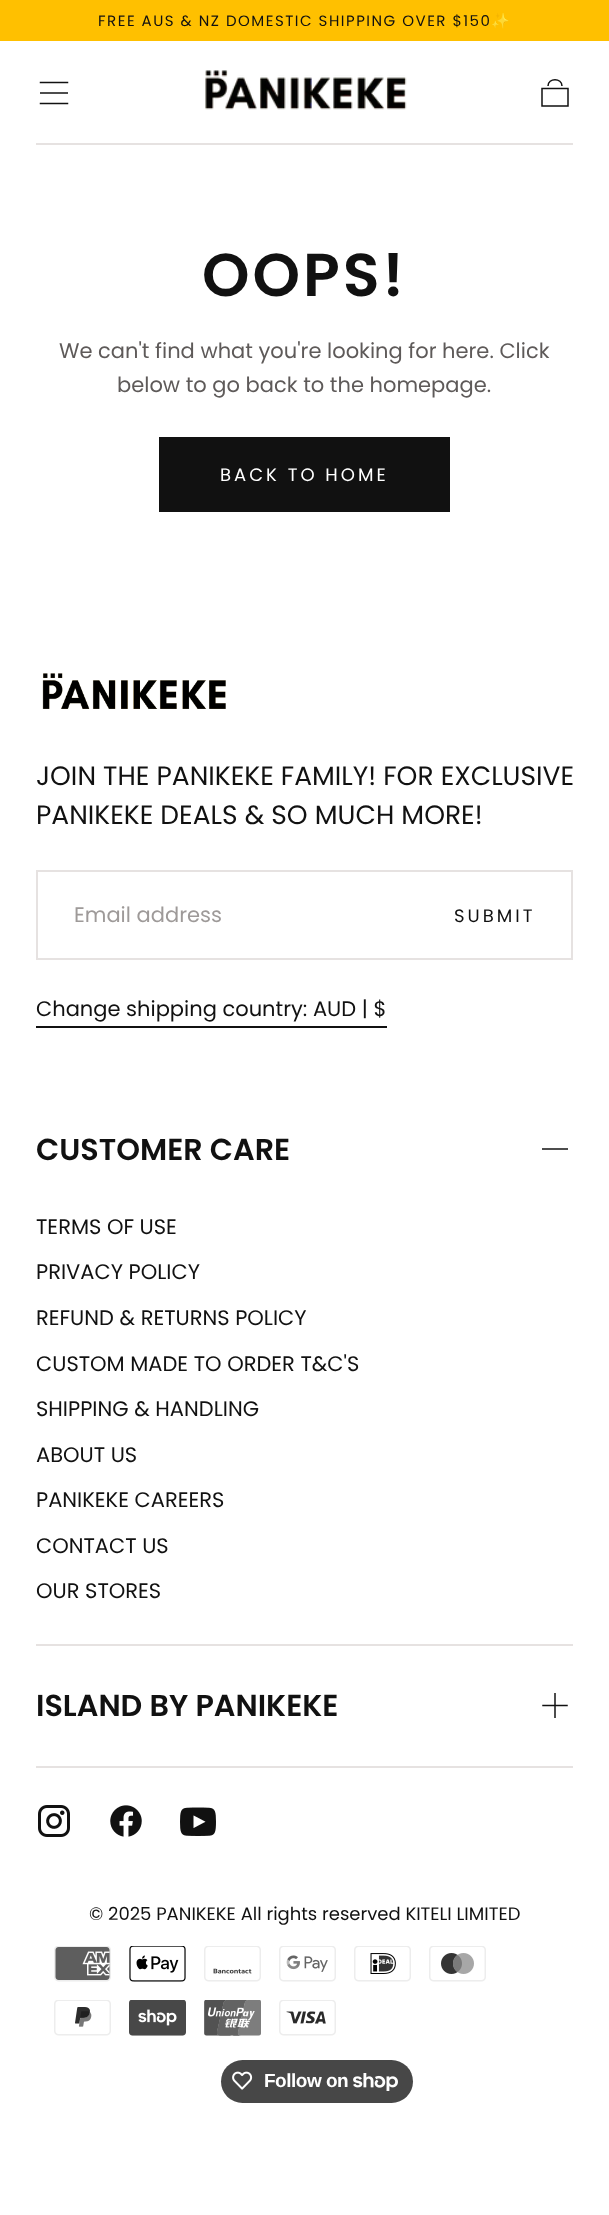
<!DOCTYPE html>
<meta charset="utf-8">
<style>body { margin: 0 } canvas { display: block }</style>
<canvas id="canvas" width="609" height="2215"></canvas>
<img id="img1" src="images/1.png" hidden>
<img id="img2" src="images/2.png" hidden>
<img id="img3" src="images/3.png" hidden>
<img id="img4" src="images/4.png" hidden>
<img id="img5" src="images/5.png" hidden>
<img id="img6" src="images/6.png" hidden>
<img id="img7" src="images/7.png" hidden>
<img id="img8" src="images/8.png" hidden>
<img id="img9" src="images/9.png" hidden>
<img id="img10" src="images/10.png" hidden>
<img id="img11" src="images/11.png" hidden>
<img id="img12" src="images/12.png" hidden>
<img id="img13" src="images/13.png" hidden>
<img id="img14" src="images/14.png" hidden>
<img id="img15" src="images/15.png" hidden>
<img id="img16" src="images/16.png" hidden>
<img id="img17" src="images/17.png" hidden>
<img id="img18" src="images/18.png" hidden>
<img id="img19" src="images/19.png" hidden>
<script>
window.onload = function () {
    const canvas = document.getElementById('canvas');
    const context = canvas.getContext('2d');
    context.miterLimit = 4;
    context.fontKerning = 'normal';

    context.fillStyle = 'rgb(255, 255, 255)';
    context.fillRect(0, 0, 609, 2215);
    context.fillStyle = 'rgb(255, 192, 0)';
    context.fillRect(0, 0, 609, 41);
    context.drawImage(document.getElementById('img1'), 39, 81, 30, 24);
    context.drawImage(document.getElementById('img2'), 205, 70, 202, 40);
    context.beginPath();
    context.moveTo(568, 106);
    context.lineTo(542, 106);
    context.lineTo(542, 88.5);
    context.lineTo(568, 88.5);
    context.closePath();
    context.moveTo(562, 86);
    context.bezierCurveTo(562, 77.5, 548, 77.5, 548, 86);
    context.strokeStyle = 'rgb(17, 17, 17)';
    context.lineWidth = 1.5;
    context.stroke();
    context.fillStyle = 'rgb(230, 226, 225)';
    context.fillRect(36, 143, 537, 2);
    context.fillStyle = 'rgb(17, 17, 17)';
    context.fillRect(159, 437, 291, 75);
    context.drawImage(document.getElementById('img3'), 42, 673, 184, 36);
    context.strokeStyle = 'rgb(230, 226, 225)';
    context.lineWidth = 2;
    context.strokeRect(37, 871, 535, 88);
    context.fillRect(36, 1026, 351, 2);
    context.fillStyle = 'rgb(230, 226, 225)';
    context.fillRect(36, 1644, 537, 2);
    context.fillStyle = 'rgb(77, 77, 77)';
    context.fillRect(542, 1148, 26, 2);
    context.fillStyle = 'rgb(230, 226, 225)';
    context.fillRect(36, 1766, 537, 2);
    context.drawImage(document.getElementById('img4'), 542, 1693, 26, 25);
    context.drawImage(document.getElementById('img5'), 38, 1805, 32, 32);
    context.drawImage(document.getElementById('img6'), 110, 1805, 32, 32);
    context.drawImage(document.getElementById('img7'), 180, 1807, 36, 29);
    context.drawImage(document.getElementById('img8'), 54, 1946, 57, 36);
    context.drawImage(document.getElementById('img9'), 129, 1946, 57, 36);
    context.drawImage(document.getElementById('img10'), 204, 1946, 57, 36);
    context.drawImage(document.getElementById('img11'), 279, 1946, 57, 36);
    context.drawImage(document.getElementById('img12'), 354, 1946, 57, 36);
    context.drawImage(document.getElementById('img13'), 429, 1946, 57, 36);
    context.drawImage(document.getElementById('img14'), 54, 2000, 57, 36);
    context.drawImage(document.getElementById('img15'), 129, 2000, 57, 36);
    context.drawImage(document.getElementById('img16'), 204, 2000, 57, 36);
    context.drawImage(document.getElementById('img17'), 279, 2000, 57, 36);
    context.fillStyle = 'rgb(71, 71, 71)';
    context.beginPath();
    context.roundRect(221, 2060, 192, 43, 21.5);
    context.fill();
    context.drawImage(document.getElementById('img18'), 232, 2071, 21, 19);
    context.drawImage(document.getElementById('img19'), 353, 2073, 45, 18);
    context.letterSpacing = '1.5px';
    context.font = '15px Poppins';
    context.fillStyle = 'rgb(17, 17, 17)';
    context.fillText('FREE AUS & NZ DOMESTIC SHIPPING OVER $150', 98, 26);
    context.font = '15px Noto Color Emoji';
    context.fillText('✨', 491, 26);
    context.letterSpacing = '3px';
    context.font = '600 60.5px Poppins';
    context.fillText('OOPS!', 202, 296);
    context.letterSpacing = '0px';
    context.font = '21px Poppins';
    context.fillStyle = 'rgb(94, 90, 89)';
    context.fillText('We can\'t find what you\'re looking for here. Click', 59, 358);
    context.fillText('below to go back to the homepage.', 117, 392);
    context.letterSpacing = '3px';
    context.font = '18px Poppins';
    context.fillStyle = 'rgb(255, 255, 255)';
    context.fillText('BACK TO HOME', 220, 481);
    context.letterSpacing = '0px';
    context.font = '26.5px Poppins';
    context.fillStyle = 'rgb(17, 17, 17)';
    context.fillText('JOIN THE PANIKEKE FAMILY! FOR EXCLUSIVE', 36, 785);
    context.fillText('PANIKEKE DEALS & SO MUCH MORE!', 36, 824);
    context.font = '21px Poppins';
    context.fillStyle = 'rgb(158, 154, 153)';
    context.fillText('Email address', 74, 922);
    context.letterSpacing = '3px';
    context.font = '18px Poppins';
    context.fillStyle = 'rgb(17, 17, 17)';
    context.fillText('SUBMIT', 454, 922);
    context.letterSpacing = '0px';
    context.font = '21px Poppins';
    context.fillText('Change shipping country: AUD | $', 36, 1016);
    context.font = '600 30.25px Poppins';
    context.fillText('CUSTOMER CARE', 36, 1160);
    context.font = '21px Poppins';
    context.fillText('TERMS OF USE', 36, 1234);
    context.fillText('PRIVACY POLICY', 36, 1279);
    context.fillText('REFUND & RETURNS POLICY', 36, 1325);
    context.fillText('CUSTOM MADE TO ORDER T&C\'S', 36, 1371);
    context.fillText('SHIPPING & HANDLING', 36, 1416);
    context.fillText('ABOUT US', 36, 1462);
    context.fillText('PANIKEKE CAREERS', 36, 1507);
    context.fillText('CONTACT US', 36, 1553);
    context.fillText('OUR STORES', 36, 1598);
    context.font = '600 30.25px Poppins';
    context.fillText('ISLAND BY PANIKEKE', 36, 1716);
    context.font = '18px Poppins';
    context.fillText('© 2025 PANIKEKE All rights reserved KITELI LIMITED', 89, 1920);
    context.letterSpacing = '-0.5px';
    context.font = 'bold 19px Liberation Sans';
    context.fillStyle = 'rgb(255, 255, 255)';
    context.fillText('Follow on', 264, 2087);
};
</script>
